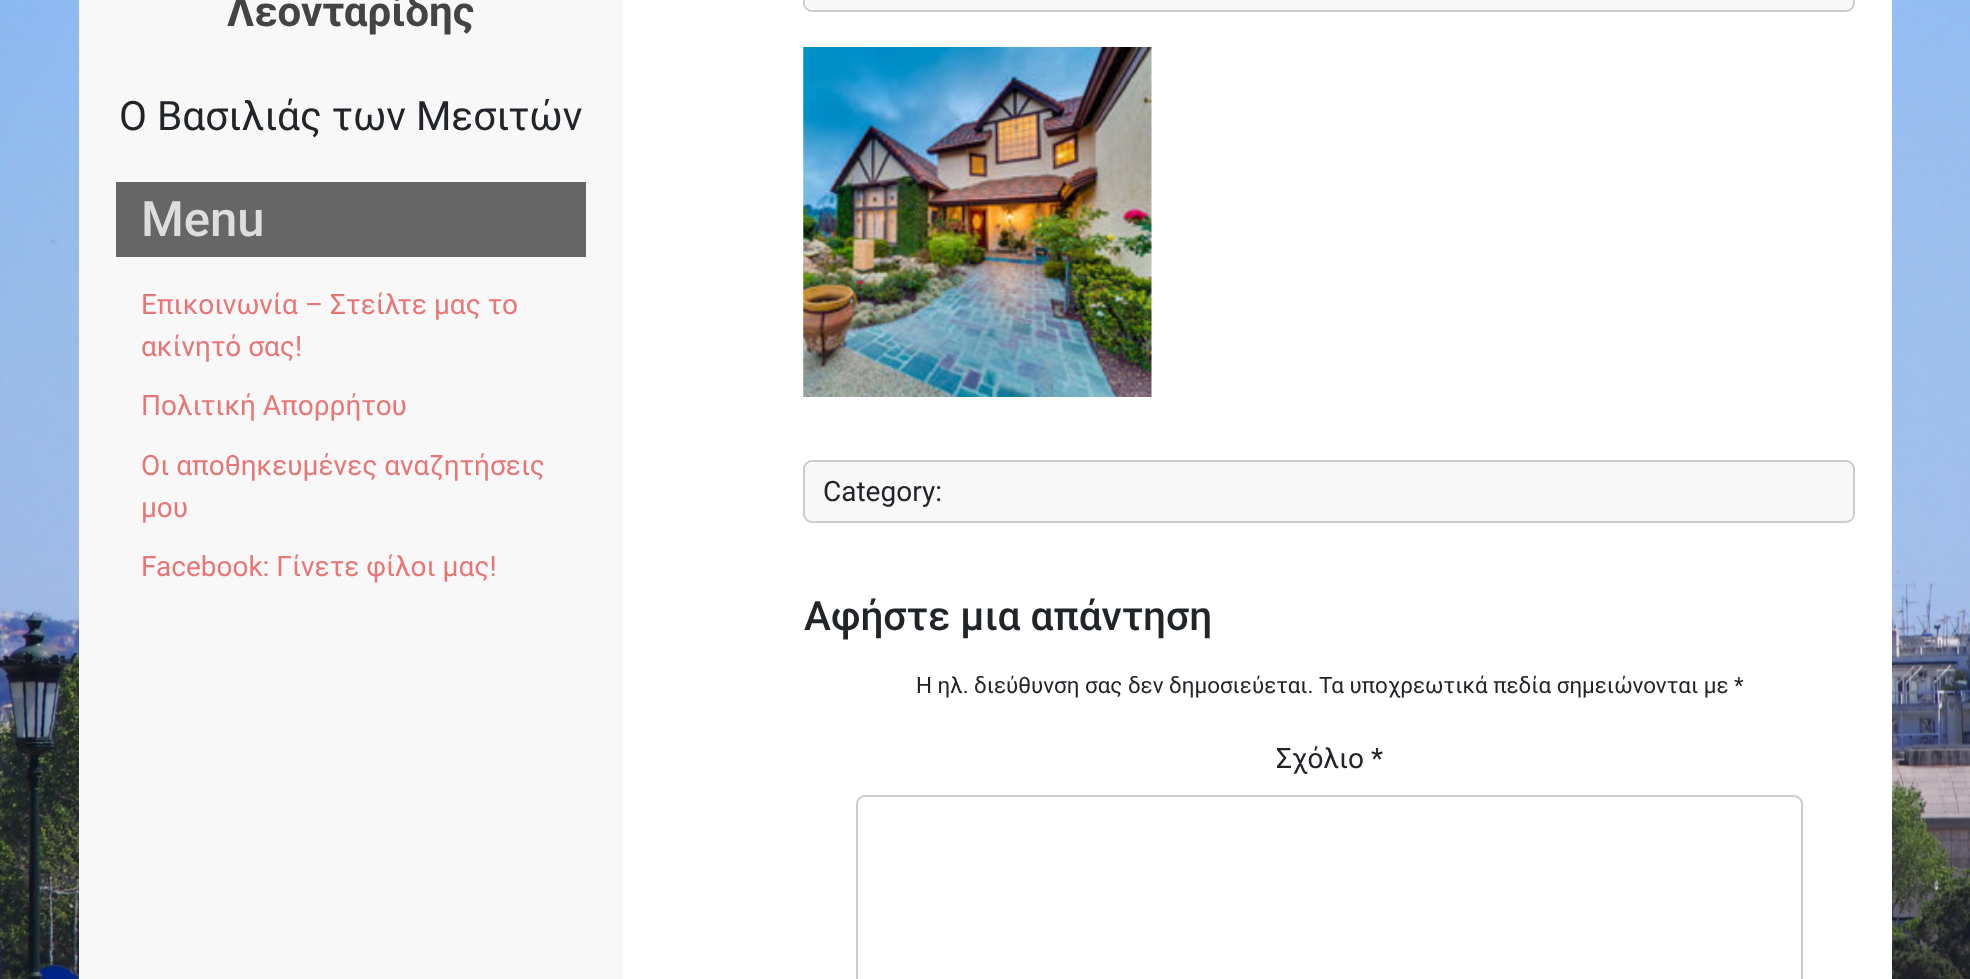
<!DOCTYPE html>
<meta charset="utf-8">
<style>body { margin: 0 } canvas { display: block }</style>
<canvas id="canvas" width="1970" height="979"></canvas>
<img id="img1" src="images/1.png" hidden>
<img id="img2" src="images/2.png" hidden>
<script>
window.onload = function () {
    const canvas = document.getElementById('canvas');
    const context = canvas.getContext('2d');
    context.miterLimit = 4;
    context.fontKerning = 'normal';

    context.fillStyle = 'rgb(255, 255, 255)';
    context.fillRect(0, 0, 1970, 979);
    context.drawImage(document.getElementById('img1'), 0, 0, 1970, 979);
    context.fillRect(623, 0, 1269, 979);
    context.fillStyle = 'rgb(248, 248, 248)';
    context.fillRect(79, 0, 544, 979);
    context.fillStyle = 'rgb(102, 102, 102)';
    context.fillRect(116, 182, 470, 75);
    context.fillStyle = 'rgb(248, 248, 248)';
    context.beginPath();
    context.roundRect(804, -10, 1050, 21, 8);
    context.fill();
    context.strokeStyle = 'rgb(204, 204, 204)';
    context.lineWidth = 2;
    context.stroke();
    context.drawImage(document.getElementById('img2'), 803, 47, 349, 350);
    context.beginPath();
    context.roundRect(804, 461, 1050, 61, 8);
    context.fill();
    context.stroke();
    context.beginPath();
    context.roundRect(857, 796, 945, 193, 8);
    context.stroke();
    context.font = 'bold 42px Roboto';
    context.fillStyle = 'rgb(68, 68, 68)';
    context.fillText('Λεονταρίδης', 227, 26);
    context.font = '40.6px Roboto';
    context.fillStyle = 'rgb(33, 37, 41)';
    context.fillText('Ο Βασιλιάς των Μεσιτών', 119, 130);
    context.font = '500 49px Roboto';
    context.fillStyle = 'rgb(221, 221, 221)';
    context.fillText('Menu', 141, 236);
    context.font = '28px Roboto';
    context.fillStyle = 'rgb(231, 119, 118)';
    context.fillText('Επικοινωνία – Στείλτε μας το', 141, 314);
    context.fillText('ακίνητό σας!', 141, 356);
    context.fillText('Πολιτική Απορρήτου', 141, 415);
    context.fillText('Οι αποθηκευμένες αναζητήσεις', 141, 475);
    context.fillText('μου', 141, 517);
    context.fillText('Facebook: Γίνετε φίλοι μας!', 141, 576);
    context.fillStyle = 'rgb(33, 37, 41)';
    context.fillText('Category:', 823, 501);
    context.font = '500 40.6px Roboto';
    context.fillText('Αφήστε μια απάντηση', 804, 630);
    context.font = '22.4px Roboto';
    context.fillText('Η ηλ. διεύθυνση σας δεν δημοσιεύεται. Τα υποχρεωτικά πεδία σημειώνονται με *', 916, 693);
    context.font = '28px Roboto';
    context.fillText('Σχόλιο *', 1276, 768);
};
</script>
